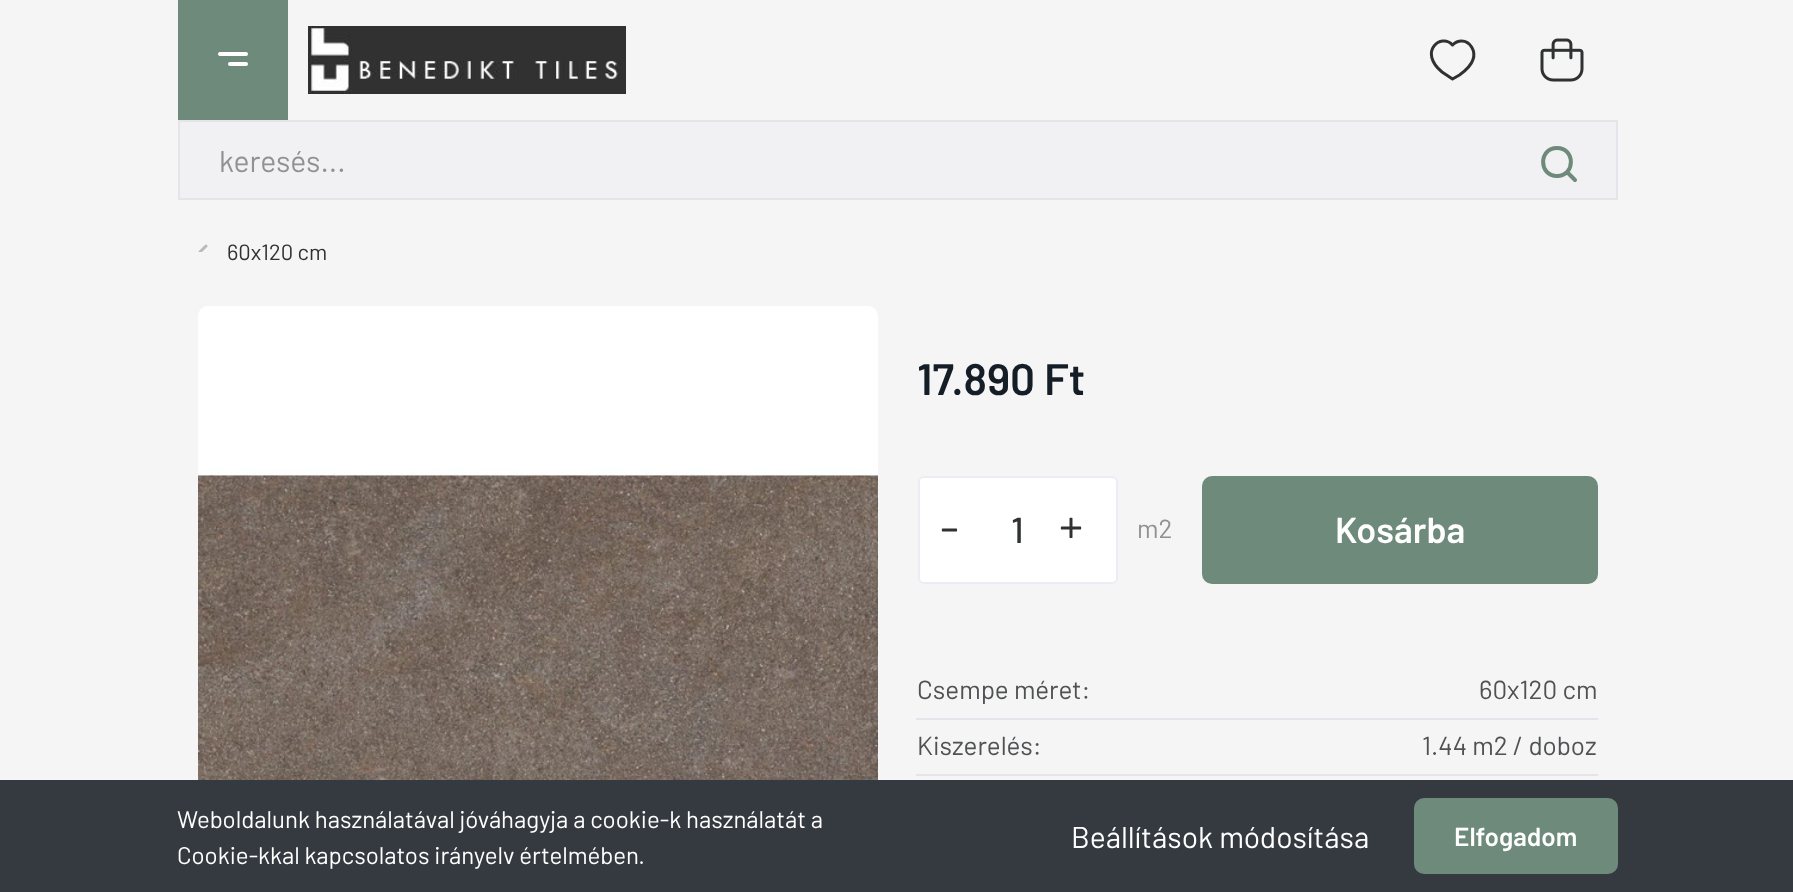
<!DOCTYPE html>
<meta charset="utf-8">
<style>body { margin: 0 } canvas { display: block }</style>
<canvas id="canvas" width="1793" height="892"></canvas>
<img id="img1" src="images/1.png" hidden>
<img id="img2" src="images/2.png" hidden>
<img id="img3" src="images/3.png" hidden>
<img id="img4" src="images/4.png" hidden>
<script>
window.onload = function () {
    const canvas = document.getElementById('canvas');
    const context = canvas.getContext('2d');
    context.miterLimit = 4;
    context.fontKerning = 'normal';

    context.fillStyle = 'rgb(245, 245, 245)';
    context.fillRect(0, 0, 1793, 892);
    context.fillStyle = 'rgb(110, 138, 123)';
    context.fillRect(178, 0, 110, 120);
    context.fillStyle = 'rgb(255, 255, 255)';
    context.beginPath();
    context.roundRect(218, 52, 30, 4, 2);
    context.fill();
    context.beginPath();
    context.roundRect(228, 62, 20, 4, 2);
    context.fill();
    context.drawImage(document.getElementById('img1'), 308, 26, 318, 68);
    context.beginPath();
    context.moveTo(1461.5, 41);
    context.bezierCurveTo(1470.5, 41, 1476, 51.5, 1473, 59.5);
    context.bezierCurveTo(1471, 66, 1465, 71, 1459.5, 75);
    context.lineTo(1452.5, 79);
    context.lineTo(1442, 72);
    context.bezierCurveTo(1417.5, 51.5, 1441.5, 32.5, 1452.5, 45);
    context.bezierCurveTo(1454.5, 43, 1457, 41, 1461.5, 41);
    context.closePath();
    context.strokeStyle = 'rgb(47, 49, 50)';
    context.lineWidth = 3;
    context.lineCap = 'round';
    context.lineJoin = 'round';
    context.stroke();
    context.drawImage(document.getElementById('img2'), 1540, 38, 44, 44);
    context.fillStyle = 'rgb(241, 241, 244)';
    context.beginPath();
    context.rect(179, 121, 1438, 78);
    context.fill();
    context.strokeStyle = 'rgb(228, 228, 234)';
    context.lineWidth = 2;
    context.lineJoin = 'miter';
    context.stroke();
    context.beginPath();
    context.moveTo(1575, 180);
    context.lineTo(1567, 172);
    context.moveTo(1557, 176);
    context.bezierCurveTo(1538.5, 176, 1538.5, 148, 1557, 148);
    context.bezierCurveTo(1575.5, 148, 1575.5, 176, 1557, 176);
    context.closePath();
    context.strokeStyle = 'rgb(110, 138, 123)';
    context.lineWidth = 4;
    context.lineJoin = 'round';
    context.stroke();
    context.drawImage(document.getElementById('img3'), 198, 244, 10, 8);
    context.drawImage(document.getElementById('img4'), 198, 306, 680, 474);
    context.fillStyle = 'rgb(255, 255, 255)';
    context.beginPath();
    context.roundRect(919, 477, 198, 106, 5);
    context.fill();
    context.strokeStyle = 'rgb(236, 236, 244)';
    context.lineWidth = 2;
    context.lineJoin = 'miter';
    context.stroke();
    context.fillStyle = 'rgb(110, 138, 123)';
    context.beginPath();
    context.roundRect(1202, 476, 396, 108, 10);
    context.fill();
    context.fillStyle = 'rgb(228, 228, 234)';
    context.fillRect(916, 718, 682, 2);
    context.fillRect(916, 774, 682, 2);
    context.fillStyle = 'rgb(52, 58, 64)';
    context.fillRect(0, 780, 1793, 112);
    context.fillStyle = 'rgb(110, 138, 123)';
    context.beginPath();
    context.roundRect(1414, 798, 204, 76, 10);
    context.fill();
    context.font = '30px Barlow';
    context.fillStyle = 'rgb(144, 145, 147)';
    context.fillText('keresés...', 219, 172);
    context.font = '22px Barlow';
    context.fillStyle = 'rgb(47, 49, 50)';
    context.fillText('60x120 cm', 227, 260);
    context.font = '600 44px Barlow';
    context.fillStyle = 'rgb(21, 30, 38)';
    context.fillText('17.890 Ft', 917, 395);
    context.font = '48px Barlow';
    context.fillStyle = 'rgb(47, 49, 50)';
    context.fillText('-', 940, 545);
    context.font = '500 36px Barlow';
    context.fillText('1', 1011, 543);
    context.font = '48px Barlow';
    context.fillText('+', 1059, 543);
    context.font = '26px Barlow';
    context.fillStyle = 'rgb(144, 145, 147)';
    context.fillText('m2', 1137, 538);
    context.font = '600 36px Barlow';
    context.fillStyle = 'rgb(255, 255, 255)';
    context.fillText('Kosárba', 1335, 543);
    context.font = '26px Barlow';
    context.fillStyle = 'rgb(79, 81, 83)';
    context.fillText('Csempe méret:', 917, 699);
    context.fillText('60x120 cm', 1479, 699);
    context.fillText('Kiszerelés:', 917, 755);
    context.fillText('1.44 m2 / doboz', 1422, 755);
    context.font = '24px Barlow';
    context.fillStyle = 'rgb(255, 255, 255)';
    context.fillText('Weboldalunk használatával jóváhagyja a cookie-k használatát a', 177, 828);
    context.fillText('Cookie-kkal kapcsolatos irányelv értelmében.', 177, 864);
    context.font = '30px Barlow';
    context.fillText('Beállítások módosítása', 1071, 848);
    context.font = '600 26px Barlow';
    context.fillText('Elfogadom', 1454, 846);
};
</script>
